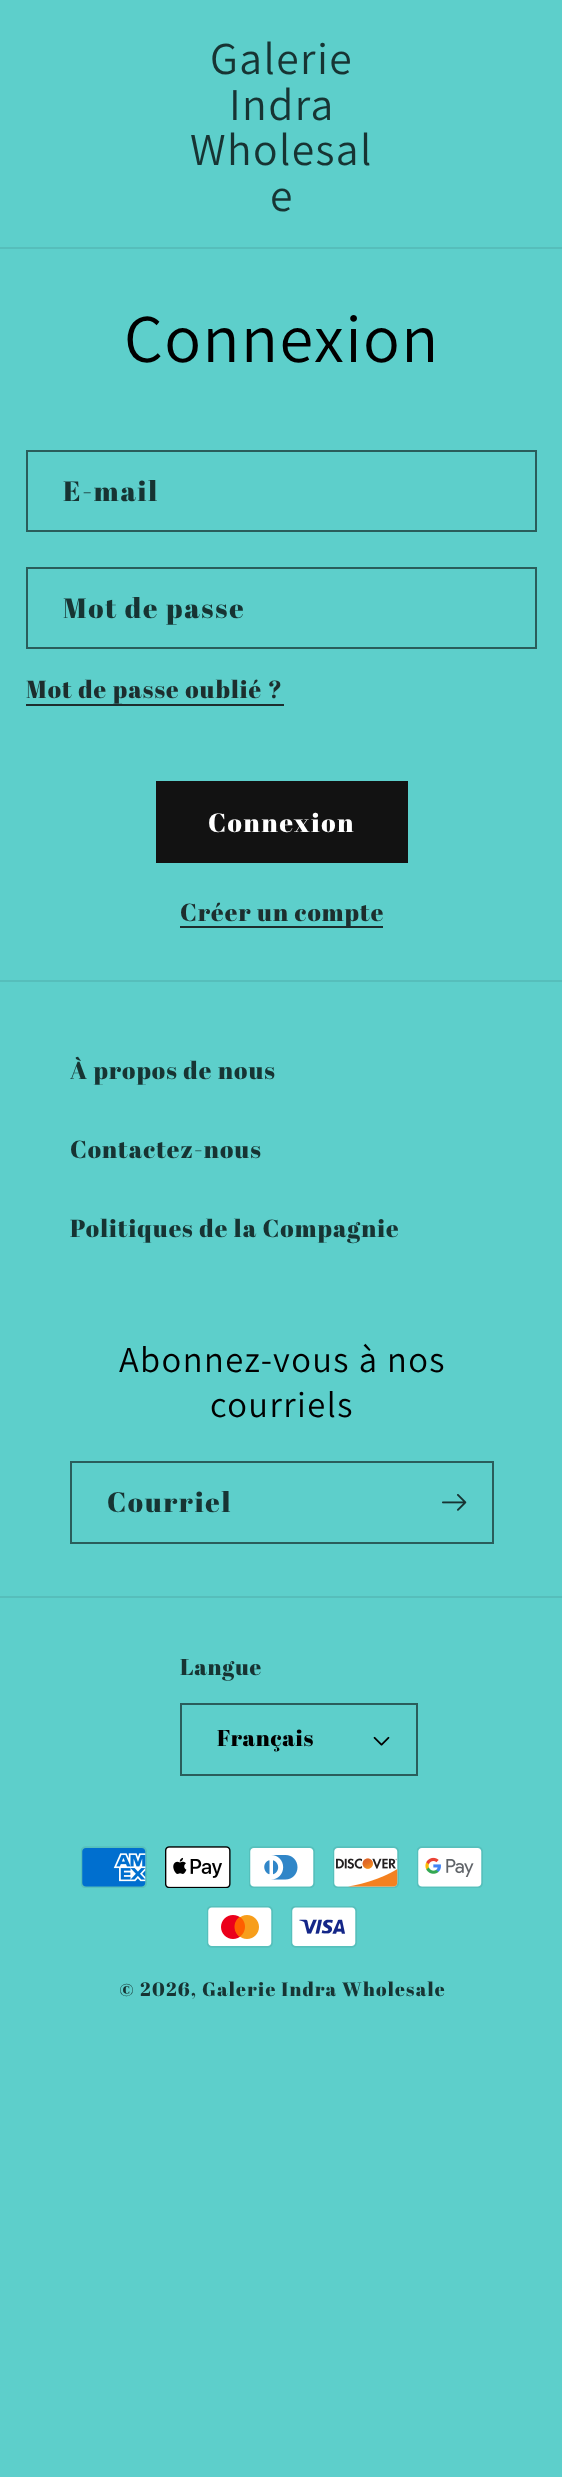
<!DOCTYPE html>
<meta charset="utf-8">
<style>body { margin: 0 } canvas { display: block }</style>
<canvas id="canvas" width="562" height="2477"></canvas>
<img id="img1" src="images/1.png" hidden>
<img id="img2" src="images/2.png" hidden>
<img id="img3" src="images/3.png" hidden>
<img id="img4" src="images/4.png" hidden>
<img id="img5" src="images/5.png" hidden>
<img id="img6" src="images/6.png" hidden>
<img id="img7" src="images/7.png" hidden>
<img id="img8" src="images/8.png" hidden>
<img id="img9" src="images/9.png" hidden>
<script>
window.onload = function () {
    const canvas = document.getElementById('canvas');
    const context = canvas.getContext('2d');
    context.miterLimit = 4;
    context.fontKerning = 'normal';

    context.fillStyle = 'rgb(93, 207, 203)';
    context.fillRect(0, 0, 562, 2477);
    context.fillStyle = 'rgb(86, 190, 187)';
    context.fillRect(0, 247, 562, 2);
    context.strokeStyle = 'rgb(42, 93, 91)';
    context.lineWidth = 2;
    context.strokeRect(27, 451, 509, 80);
    context.strokeRect(27, 568, 509, 80);
    context.fillStyle = 'rgb(29, 46, 46)';
    context.fillRect(26, 704, 258, 2);
    context.fillStyle = 'rgb(18, 18, 18)';
    context.fillRect(156, 781, 252, 82);
    context.fillStyle = 'rgb(29, 46, 46)';
    context.fillRect(180, 926, 203, 2);
    context.fillStyle = 'rgb(86, 190, 187)';
    context.fillRect(0, 980, 562, 2);
    context.strokeRect(71, 1462, 422, 81);
    context.drawImage(document.getElementById('img1'), 442, 1494, 25, 17);
    context.fillRect(0, 1596, 562, 2);
    context.drawImage(document.getElementById('img2'), 373, 1736, 17, 10);
    context.strokeRect(181, 1704, 236, 71);
    context.drawImage(document.getElementById('img3'), 81, 1846, 66, 42);
    context.drawImage(document.getElementById('img4'), 165, 1846, 66, 42);
    context.drawImage(document.getElementById('img5'), 249, 1846, 66, 42);
    context.drawImage(document.getElementById('img6'), 333, 1846, 66, 42);
    context.drawImage(document.getElementById('img7'), 417, 1846, 66, 42);
    context.drawImage(document.getElementById('img8'), 207, 1906, 66, 42);
    context.drawImage(document.getElementById('img9'), 291, 1906, 66, 42);
    context.letterSpacing = '1.4px';
    context.font = '45.5px Assistant';
    context.fillStyle = 'rgb(23, 52, 51)';
    context.fillText('Galerie', 210, 74);
    context.fillText('Indra', 229, 120);
    context.fillText('Wholesal', 190, 165);
    context.fillText('e', 270, 211);
    context.font = '68.25px Assistant';
    context.fillStyle = 'rgb(0, 0, 0)';
    context.fillText('Connexion', 124, 362);
    context.letterSpacing = '1.75px';
    context.font = '28px Abril Fatface';
    context.fillStyle = 'rgb(23, 52, 51)';
    context.fillText('E-mail', 63, 501);
    context.fillText('Mot de passe', 63, 618);
    context.letterSpacing = '1.05px';
    context.font = '24.5px Abril Fatface';
    context.fillStyle = 'rgb(29, 46, 46)';
    context.fillText('Mot de passe oublié ?', 26, 698);
    context.letterSpacing = '1.75px';
    context.font = '26.25px Abril Fatface';
    context.fillStyle = 'rgb(255, 255, 255)';
    context.fillText('Connexion', 208, 832);
    context.letterSpacing = '1.05px';
    context.font = '24.5px Abril Fatface';
    context.fillStyle = 'rgb(29, 46, 46)';
    context.fillText('Créer un compte', 180, 921);
    context.fillStyle = 'rgb(23, 52, 51)';
    context.fillText('À propos de nous', 70, 1079);
    context.fillText('Contactez-nous', 70, 1158);
    context.fillText('Politiques de la Compagnie', 70, 1237);
    context.letterSpacing = '1.4px';
    context.font = '36.5px Assistant';
    context.fillStyle = 'rgb(0, 0, 0)';
    context.fillText('Abonnez-vous à nos', 119, 1372);
    context.fillText('courriels', 210, 1417);
    context.letterSpacing = '1.75px';
    context.font = '28px Abril Fatface';
    context.fillStyle = 'rgb(23, 52, 51)';
    context.fillText('Courriel', 107, 1512);
    context.letterSpacing = '0.75px';
    context.font = '22.75px Abril Fatface';
    context.fillText('Langue', 180, 1675);
    context.fillStyle = 'rgb(0, 0, 0)';
    context.fillText('Français', 217, 1746);
    context.letterSpacing = '1.25px';
    context.font = '19.25px Abril Fatface';
    context.fillStyle = 'rgb(23, 52, 51)';
    context.fillText('© 2026, Galerie Indra Wholesale', 119, 1996);
};
</script>
